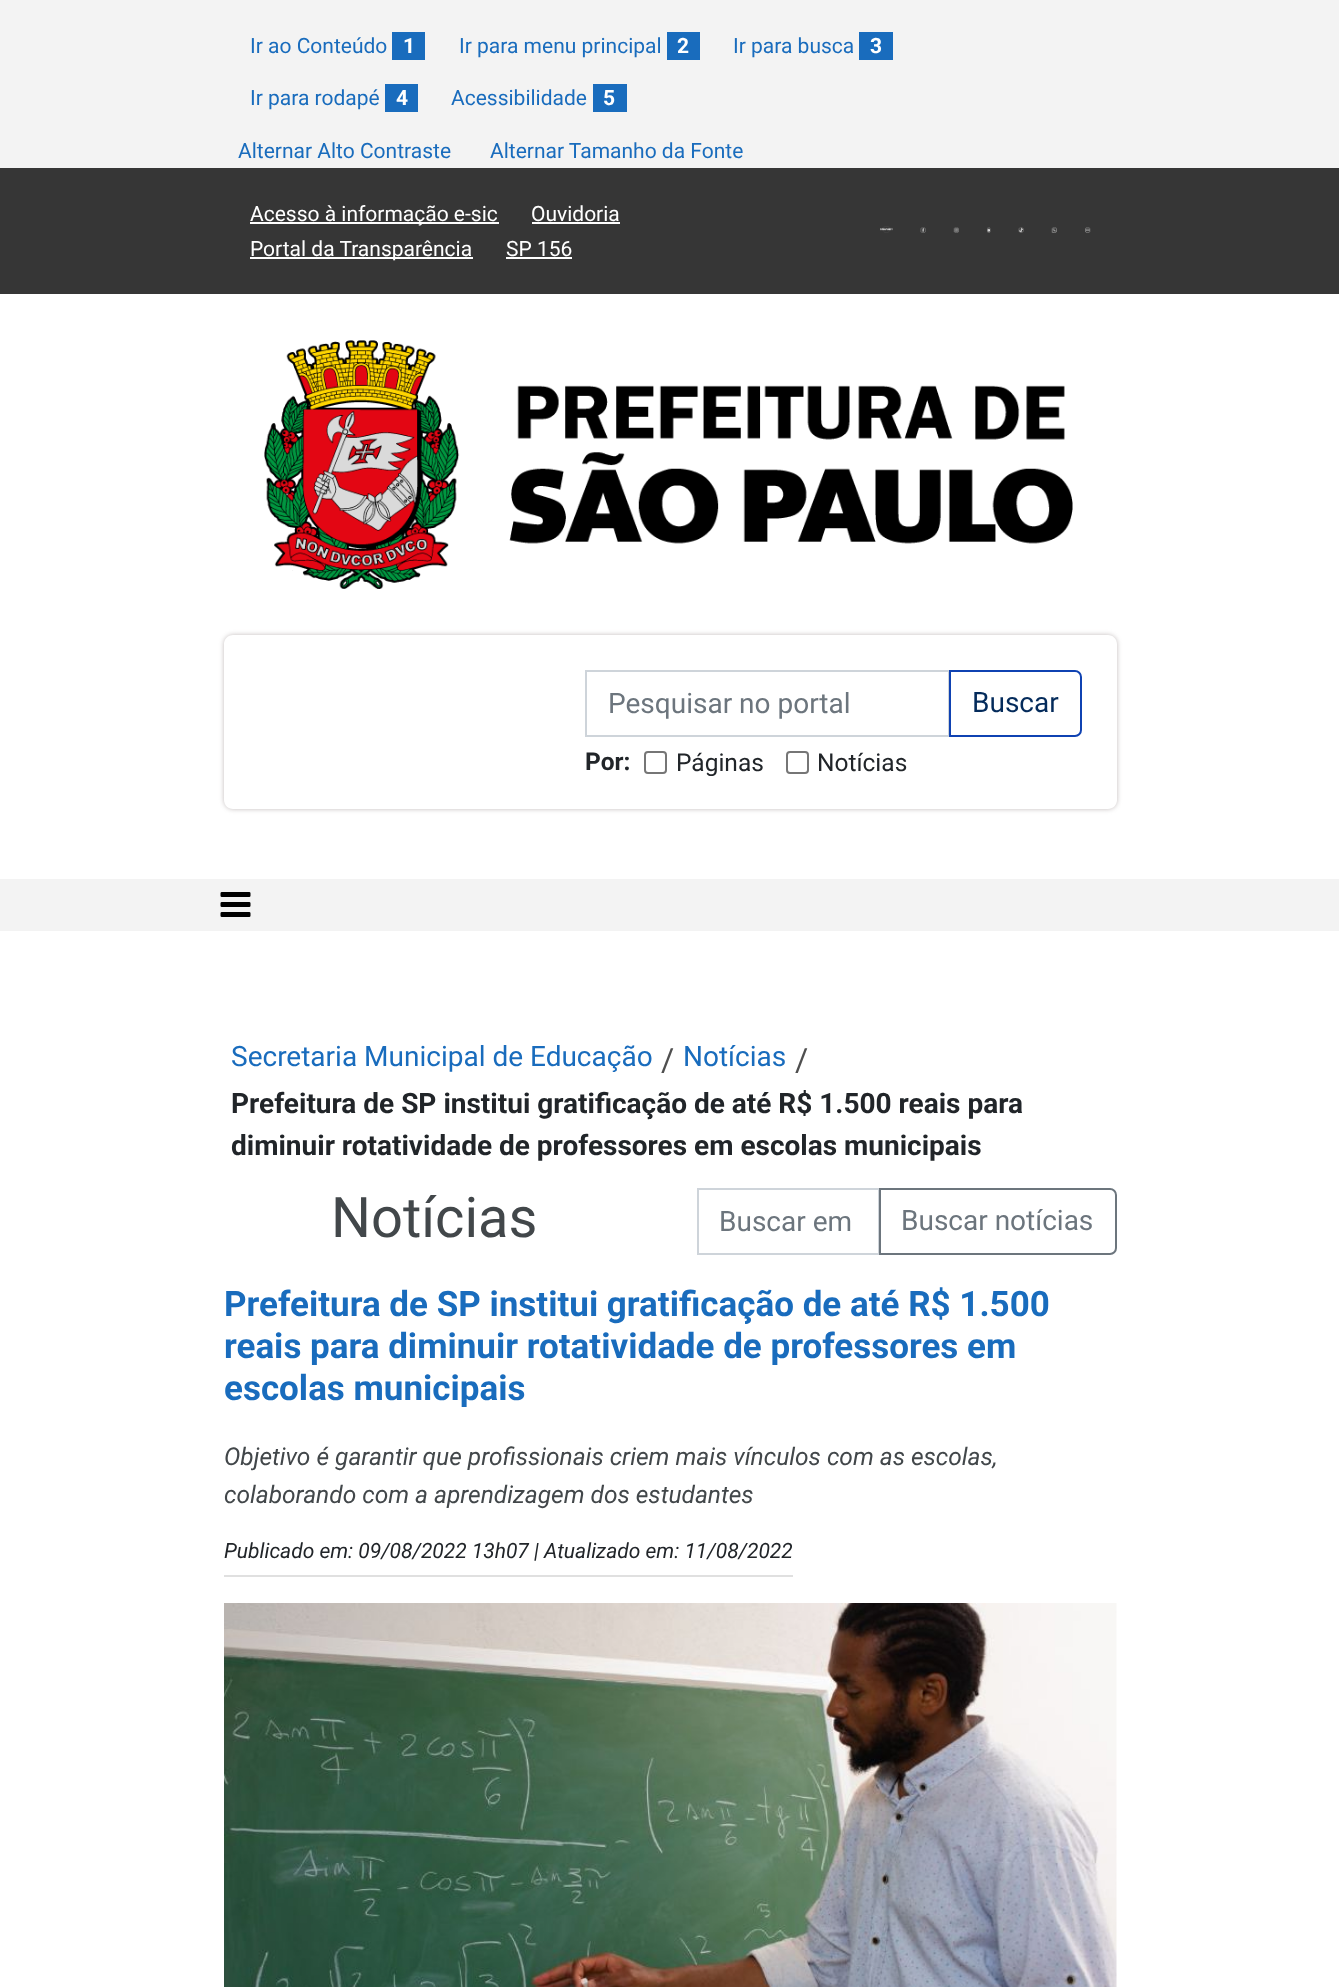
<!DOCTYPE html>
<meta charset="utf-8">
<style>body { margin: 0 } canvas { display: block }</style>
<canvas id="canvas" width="1339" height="1987"></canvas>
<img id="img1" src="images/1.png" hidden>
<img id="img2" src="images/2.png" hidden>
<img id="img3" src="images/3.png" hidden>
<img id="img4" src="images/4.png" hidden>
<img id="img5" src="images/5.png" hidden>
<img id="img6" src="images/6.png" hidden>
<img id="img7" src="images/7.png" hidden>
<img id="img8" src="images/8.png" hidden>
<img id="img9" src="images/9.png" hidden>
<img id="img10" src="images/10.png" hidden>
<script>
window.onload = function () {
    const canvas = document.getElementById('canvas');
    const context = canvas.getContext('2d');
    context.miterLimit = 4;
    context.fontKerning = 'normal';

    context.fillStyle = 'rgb(255, 255, 255)';
    context.fillRect(0, 0, 1339, 1987);
    context.fillStyle = 'rgb(243, 243, 243)';
    context.fillRect(0, 0, 1339, 168);
    context.fillStyle = 'rgb(25, 108, 189)';
    context.fillRect(392, 32, 33, 28);
    context.fillRect(667, 32, 33, 28);
    context.fillRect(859, 32, 34, 28);
    context.fillRect(385, 84, 33, 28);
    context.fillRect(593, 84, 34, 28);
    context.fillStyle = 'rgb(54, 54, 54)';
    context.fillRect(0, 168, 1339, 126);
    context.fillStyle = 'rgb(255, 255, 255)';
    context.fillRect(250, 222, 249, 2);
    context.fillRect(532, 222, 88, 2);
    context.fillRect(250, 257, 223, 2);
    context.fillRect(506, 257, 66, 2);
    context.drawImage(document.getElementById('img1'), 880, 226, 13, 7);
    context.drawImage(document.getElementById('img2'), 920, 227, 6, 6);
    context.drawImage(document.getElementById('img3'), 953, 227, 6, 6);
    context.drawImage(document.getElementById('img4'), 987, 227, 4, 6);
    context.drawImage(document.getElementById('img5'), 1018, 227, 6, 6);
    context.drawImage(document.getElementById('img6'), 1051, 227, 6, 6);
    context.drawImage(document.getElementById('img7'), 1085, 227, 6, 6);
    context.drawImage(document.getElementById('img8'), 264, 340, 809, 249);
    context.save();
    context.beginPath();
    context.moveTo(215, 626);
    context.lineTo(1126, 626);
    context.lineTo(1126, 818);
    context.lineTo(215, 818);
    context.closePath();
    context.moveTo(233, 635);
    context.lineTo(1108, 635);
    context.bezierCurveTo(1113, 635, 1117, 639, 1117, 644);
    context.lineTo(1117, 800);
    context.bezierCurveTo(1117, 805, 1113, 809, 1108, 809);
    context.lineTo(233, 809);
    context.bezierCurveTo(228, 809, 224, 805, 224, 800);
    context.lineTo(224, 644);
    context.bezierCurveTo(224, 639, 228, 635, 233, 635);
    context.closePath();
    context.clip('evenodd');
    context.fillStyle = 'rgb(193, 187, 187)';
    context.filter = 'blur(2.5px)';
    context.beginPath();
    context.roundRect(224, 635, 893, 174, 9);
    context.fill();
    context.filter = 'none';
    context.restore();
    context.strokeStyle = 'rgb(206, 212, 218)';
    context.lineWidth = 2;
    context.strokeRect(586, 671, 363, 65);
    context.beginPath();
    context.roundRect(950, 671, 131, 65, [0, 6, 6, 0]);
    context.strokeStyle = 'rgb(15, 66, 178)';
    context.stroke();
    context.beginPath();
    context.roundRect(645, 752, 21, 21, 3);
    context.strokeStyle = 'rgb(118, 118, 118)';
    context.stroke();
    context.beginPath();
    context.roundRect(787, 752, 21, 21, 3);
    context.stroke();
    context.fillStyle = 'rgb(243, 243, 243)';
    context.fillRect(0, 879, 1339, 52);
    context.drawImage(document.getElementById('img9'), 220, 892, 31, 25);
    context.strokeStyle = 'rgb(206, 212, 218)';
    context.strokeRect(698, 1189, 181, 65);
    context.beginPath();
    context.roundRect(880, 1189, 236, 65, [0, 6, 6, 0]);
    context.strokeStyle = 'rgb(108, 117, 125)';
    context.stroke();
    context.fillStyle = 'rgb(224, 224, 224)';
    context.fillRect(224, 1575, 569, 2);
    context.drawImage(document.getElementById('img10'), 224, 1603, 893, 384);
    context.font = '21px Roboto';
    context.fillStyle = 'rgb(25, 108, 189)';
    context.fillText('Ir ao Conteúdo', 250, 53);
    context.font = 'bold 21px Roboto';
    context.fillStyle = 'rgb(255, 255, 255)';
    context.fillText('1', 403, 53);
    context.font = '21px Roboto';
    context.fillStyle = 'rgb(25, 108, 189)';
    context.fillText('Ir para menu principal', 459, 53);
    context.font = 'bold 21px Roboto';
    context.fillStyle = 'rgb(255, 255, 255)';
    context.fillText('2', 677, 53);
    context.font = '21px Roboto';
    context.fillStyle = 'rgb(25, 108, 189)';
    context.fillText('Ir para busca', 733, 53);
    context.font = 'bold 21px Roboto';
    context.fillStyle = 'rgb(255, 255, 255)';
    context.fillText('3', 870, 53);
    context.font = '21px Roboto';
    context.fillStyle = 'rgb(25, 108, 189)';
    context.fillText('Ir para rodapé', 250, 105);
    context.font = 'bold 21px Roboto';
    context.fillStyle = 'rgb(255, 255, 255)';
    context.fillText('4', 396, 105);
    context.font = '21px Roboto';
    context.fillStyle = 'rgb(25, 108, 189)';
    context.fillText('Acessibilidade', 451, 105);
    context.font = 'bold 21px Roboto';
    context.fillStyle = 'rgb(255, 255, 255)';
    context.fillText('5', 603, 105);
    context.font = '21px Roboto';
    context.fillStyle = 'rgb(25, 108, 189)';
    context.fillText('Alternar Alto Contraste', 238, 158);
    context.fillText('Alternar Tamanho da Fonte', 490, 158);
    context.fillStyle = 'rgb(255, 255, 255)';
    context.fillText('Acesso à informação e-sic', 250, 221);
    context.fillText('Ouvidoria', 531, 221);
    context.fillText('Portal da Transparência', 250, 256);
    context.fillText('SP 156', 506, 256);
    context.font = '28px Roboto';
    context.fillStyle = 'rgb(108, 117, 125)';
    context.fillText('Pesquisar no portal', 608, 713);
    context.fillStyle = 'rgb(4, 43, 91)';
    context.fillText('Buscar', 972, 712);
    context.font = 'bold 24.5px Roboto';
    context.fillStyle = 'rgb(33, 37, 41)';
    context.fillText('Por:', 585, 770);
    context.font = '24.5px Roboto';
    context.fillText('Páginas', 676, 771);
    context.fillText('Notícias', 817, 771);
    context.font = '28px Roboto';
    context.fillStyle = 'rgb(25, 108, 189)';
    context.fillText('Secretaria Municipal de Educação', 231, 1066);
    context.font = '32px Roboto';
    context.fillStyle = 'rgb(79, 79, 79)';
    context.fillText('/', 661, 1071);
    context.font = '28px Roboto';
    context.fillStyle = 'rgb(25, 108, 189)';
    context.fillText('Notícias', 683, 1066);
    context.font = '32px Roboto';
    context.fillStyle = 'rgb(79, 79, 79)';
    context.fillText('/', 795, 1071);
    context.font = 'bold 28px Roboto';
    context.fillStyle = 'rgb(33, 37, 41)';
    context.fillText('Prefeitura de SP institui gratificação de até R$ 1.500 reais para', 231, 1113);
    context.fillText('diminuir rotatividade de professores em escolas municipais', 231, 1155);
    context.font = '56px Roboto';
    context.fillStyle = 'rgb(66, 71, 74)';
    context.fillText('Notícias', 331, 1237);
    context.font = '28px Roboto';
    context.fillStyle = 'rgb(108, 117, 125)';
    context.fillText('Buscar em', 719, 1231);
    context.fillText('Buscar notícias', 901, 1230);
    context.font = 'bold 35px Roboto';
    context.fillStyle = 'rgb(25, 108, 189)';
    context.fillText('Prefeitura de SP institui gratificação de até R$ 1.500', 224, 1316);
    context.fillText('reais para diminuir rotatividade de professores em', 224, 1358);
    context.fillText('escolas municipais', 224, 1400);
    context.font = 'italic 24.5px Roboto';
    context.fillStyle = 'rgb(66, 71, 74)';
    context.fillText('Objetivo é garantir que profissionais criem mais vínculos com as escolas,', 224, 1465);
    context.fillText('colaborando com a aprendizagem dos estudantes', 224, 1503);
    context.font = 'italic 21px Roboto';
    context.fillStyle = 'rgb(33, 37, 41)';
    context.fillText('Publicado em: 09/08/2022 13h07 | Atualizado em: 11/08/2022', 224, 1558);
};
</script>
